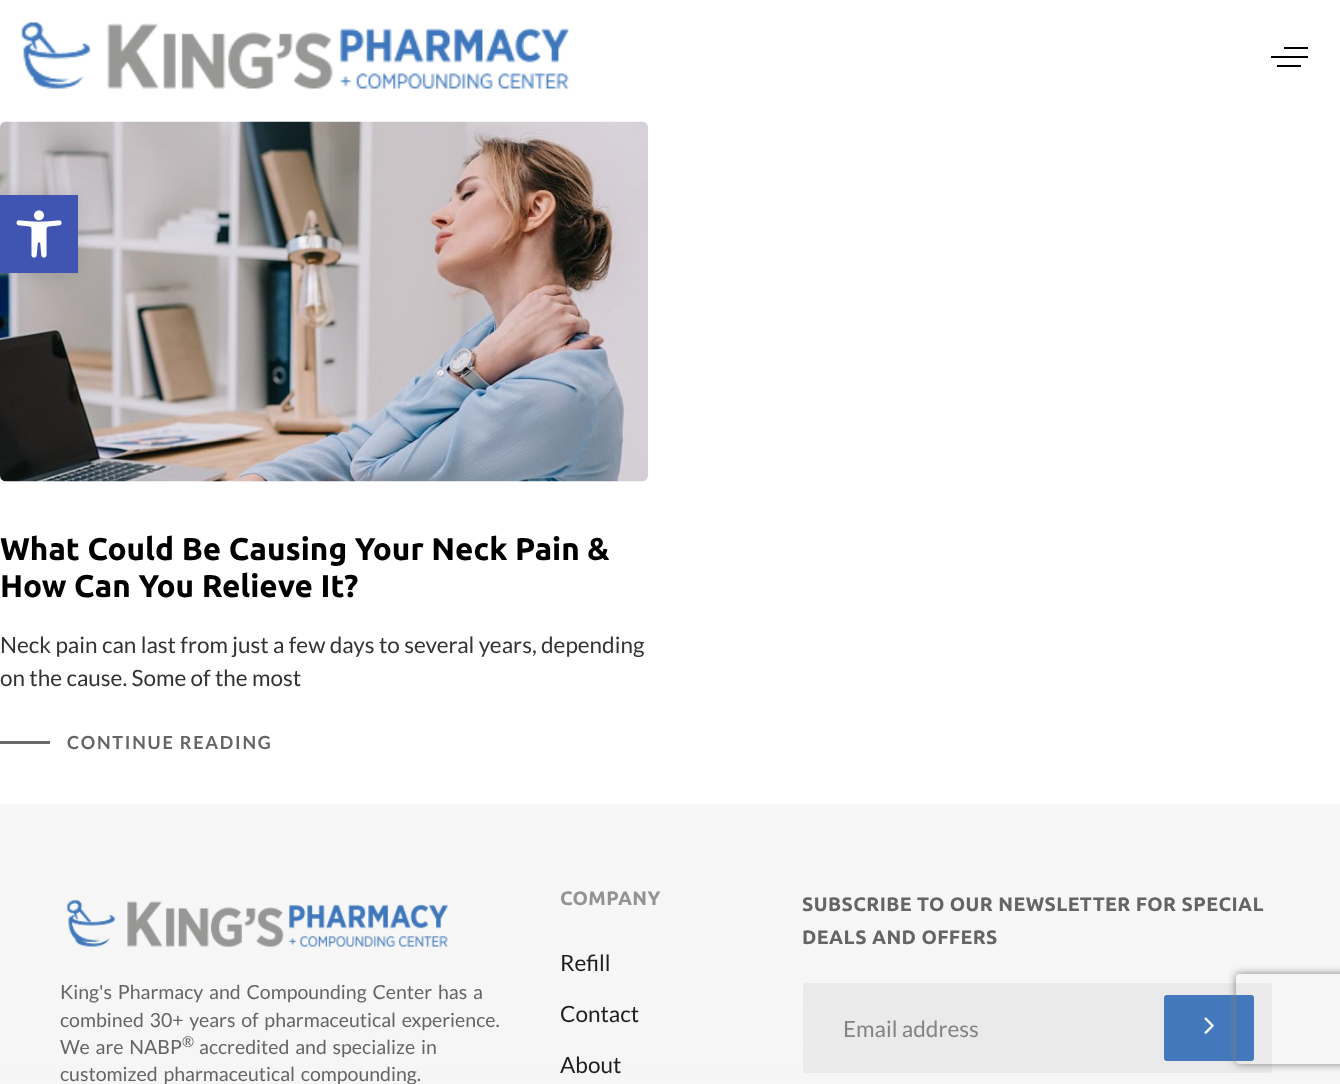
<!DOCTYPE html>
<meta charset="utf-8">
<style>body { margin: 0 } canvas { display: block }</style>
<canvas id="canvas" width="1340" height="1084"></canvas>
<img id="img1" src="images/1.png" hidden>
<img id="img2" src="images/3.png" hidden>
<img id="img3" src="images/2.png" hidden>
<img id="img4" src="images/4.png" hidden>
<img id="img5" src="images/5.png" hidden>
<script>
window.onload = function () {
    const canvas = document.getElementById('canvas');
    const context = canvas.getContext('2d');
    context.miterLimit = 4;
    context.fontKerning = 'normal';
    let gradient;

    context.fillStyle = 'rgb(255, 255, 255)';
    context.fillRect(0, 0, 1340, 1084);
    context.drawImage(document.getElementById('img1'), 21, 22, 548, 67);
    context.fillStyle = 'rgb(0, 0, 0)';
    context.fillRect(1284, 47, 24, 2);
    context.fillRect(1271, 56, 37, 2);
    context.fillRect(1277, 65, 24, 2);
    context.drawImage(document.getElementById('img2'), 0, 121, 648, 361);
    context.fillStyle = 'rgba(0, 0, 0, 0.1)';
    context.filter = 'blur(7.5px)';
    context.beginPath();
    context.rect(0, 195, 78, 78);
    context.fill();
    context.filter = 'none';
    context.fillStyle = 'rgb(64, 84, 178)';
    context.fillRect(0, 195, 78, 78);
    context.drawImage(document.getElementById('img3'), 16, 210, 46, 48);
    context.fillStyle = 'rgb(106, 106, 106)';
    context.fillRect(0, 741, 50, 3);
    gradient = context.createLinearGradient(671, 804, 671, 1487);
    gradient.addColorStop(0, 'rgb(247, 247, 247)');
    gradient.addColorStop(1, 'rgb(244, 244, 244)');
    context.fillStyle = gradient;
    context.fillRect(0, 804, 1340, 280);
    context.drawImage(document.getElementById('img4'), 67, 900, 381, 47);
    context.fillStyle = 'rgb(234, 234, 234)';
    context.beginPath();
    context.roundRect(803, 983, 469, 90, 3);
    context.fill();
    context.fillStyle = 'rgb(67, 120, 188)';
    context.beginPath();
    context.roundRect(1164, 995, 90, 66, 3);
    context.fill();
    context.drawImage(document.getElementById('img5'), 1204, 1017, 10, 17);
    context.save();
    context.beginPath();
    context.moveTo(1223, 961);
    context.lineTo(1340, 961);
    context.lineTo(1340, 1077);
    context.lineTo(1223, 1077);
    context.closePath();
    context.moveTo(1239, 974);
    context.lineTo(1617, 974);
    context.bezierCurveTo(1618.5, 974, 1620, 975.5, 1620, 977);
    context.lineTo(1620, 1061);
    context.bezierCurveTo(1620, 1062.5, 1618.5, 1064, 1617, 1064);
    context.lineTo(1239, 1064);
    context.bezierCurveTo(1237.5, 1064, 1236, 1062.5, 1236, 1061);
    context.lineTo(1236, 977);
    context.bezierCurveTo(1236, 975.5, 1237.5, 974, 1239, 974);
    context.closePath();
    context.clip('evenodd');
    context.fillStyle = 'rgb(128, 128, 128)';
    context.filter = 'blur(4px)';
    context.beginPath();
    context.roundRect(1236, 974, 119, 90, 3);
    context.fill();
    context.filter = 'none';
    context.restore();
    context.font = 'bold 31.5px Ubuntu';
    context.fillStyle = 'rgb(0, 0, 0)';
    context.fillText('What Could Be Causing Your Neck Pain &', 0, 560);
    context.fillText('How Can You Relieve It?', 0, 597);
    context.font = '22.5px Lato';
    context.fillStyle = 'rgb(51, 51, 51)';
    context.fillText('Neck pain can last from just a few days to several years, depending', 0, 653);
    context.fillText('on the cause. Some of the most', 0, 686);
    context.letterSpacing = '1.75px';
    context.font = 'bold 18px Lato';
    context.fillStyle = 'rgb(101, 101, 101)';
    context.fillText('CONTINUE READING', 67, 749);
    context.letterSpacing = '0px';
    context.wordSpacing = '2px';
    context.font = '19.5px Lato';
    context.fillText('King\'s Pharmacy and Compounding Center has a', 60, 999);
    context.fillText('combined 30+ years of pharmaceutical experience.', 60, 1027);
    context.fillText('We are NABP', 60, 1054);
    context.wordSpacing = '0px';
    context.font = '15px Lato';
    context.fillText('®', 182, 1047);
    context.wordSpacing = '2px';
    context.font = '19.5px Lato';
    context.fillText('accredited and specialize in', 199, 1054);
    context.fillText('customized pharmaceutical compounding.', 60, 1081);
    context.letterSpacing = '0.4px';
    context.wordSpacing = '0px';
    context.font = 'bold 19.5px Ubuntu';
    context.fillStyle = 'rgb(147, 147, 147)';
    context.fillText('COMPANY', 560, 905);
    context.letterSpacing = '0px';
    context.font = '22.5px Lato';
    context.fillStyle = 'rgb(30, 30, 30)';
    context.fillText('Refill', 560, 971);
    context.fillText('Contact', 560, 1022);
    context.fillText('About', 560, 1073);
    context.letterSpacing = '0.4px';
    context.font = 'bold 19.5px Ubuntu';
    context.fillStyle = 'rgb(101, 101, 101)';
    context.fillText('SUBSCRIBE TO OUR NEWSLETTER FOR SPECIAL', 802, 911);
    context.fillText('DEALS AND OFFERS', 802, 944);
    context.letterSpacing = '0px';
    context.font = '22.5px Lato';
    context.fillStyle = 'rgb(132, 132, 132)';
    context.fillText('Email address', 843, 1037);
};
</script>
